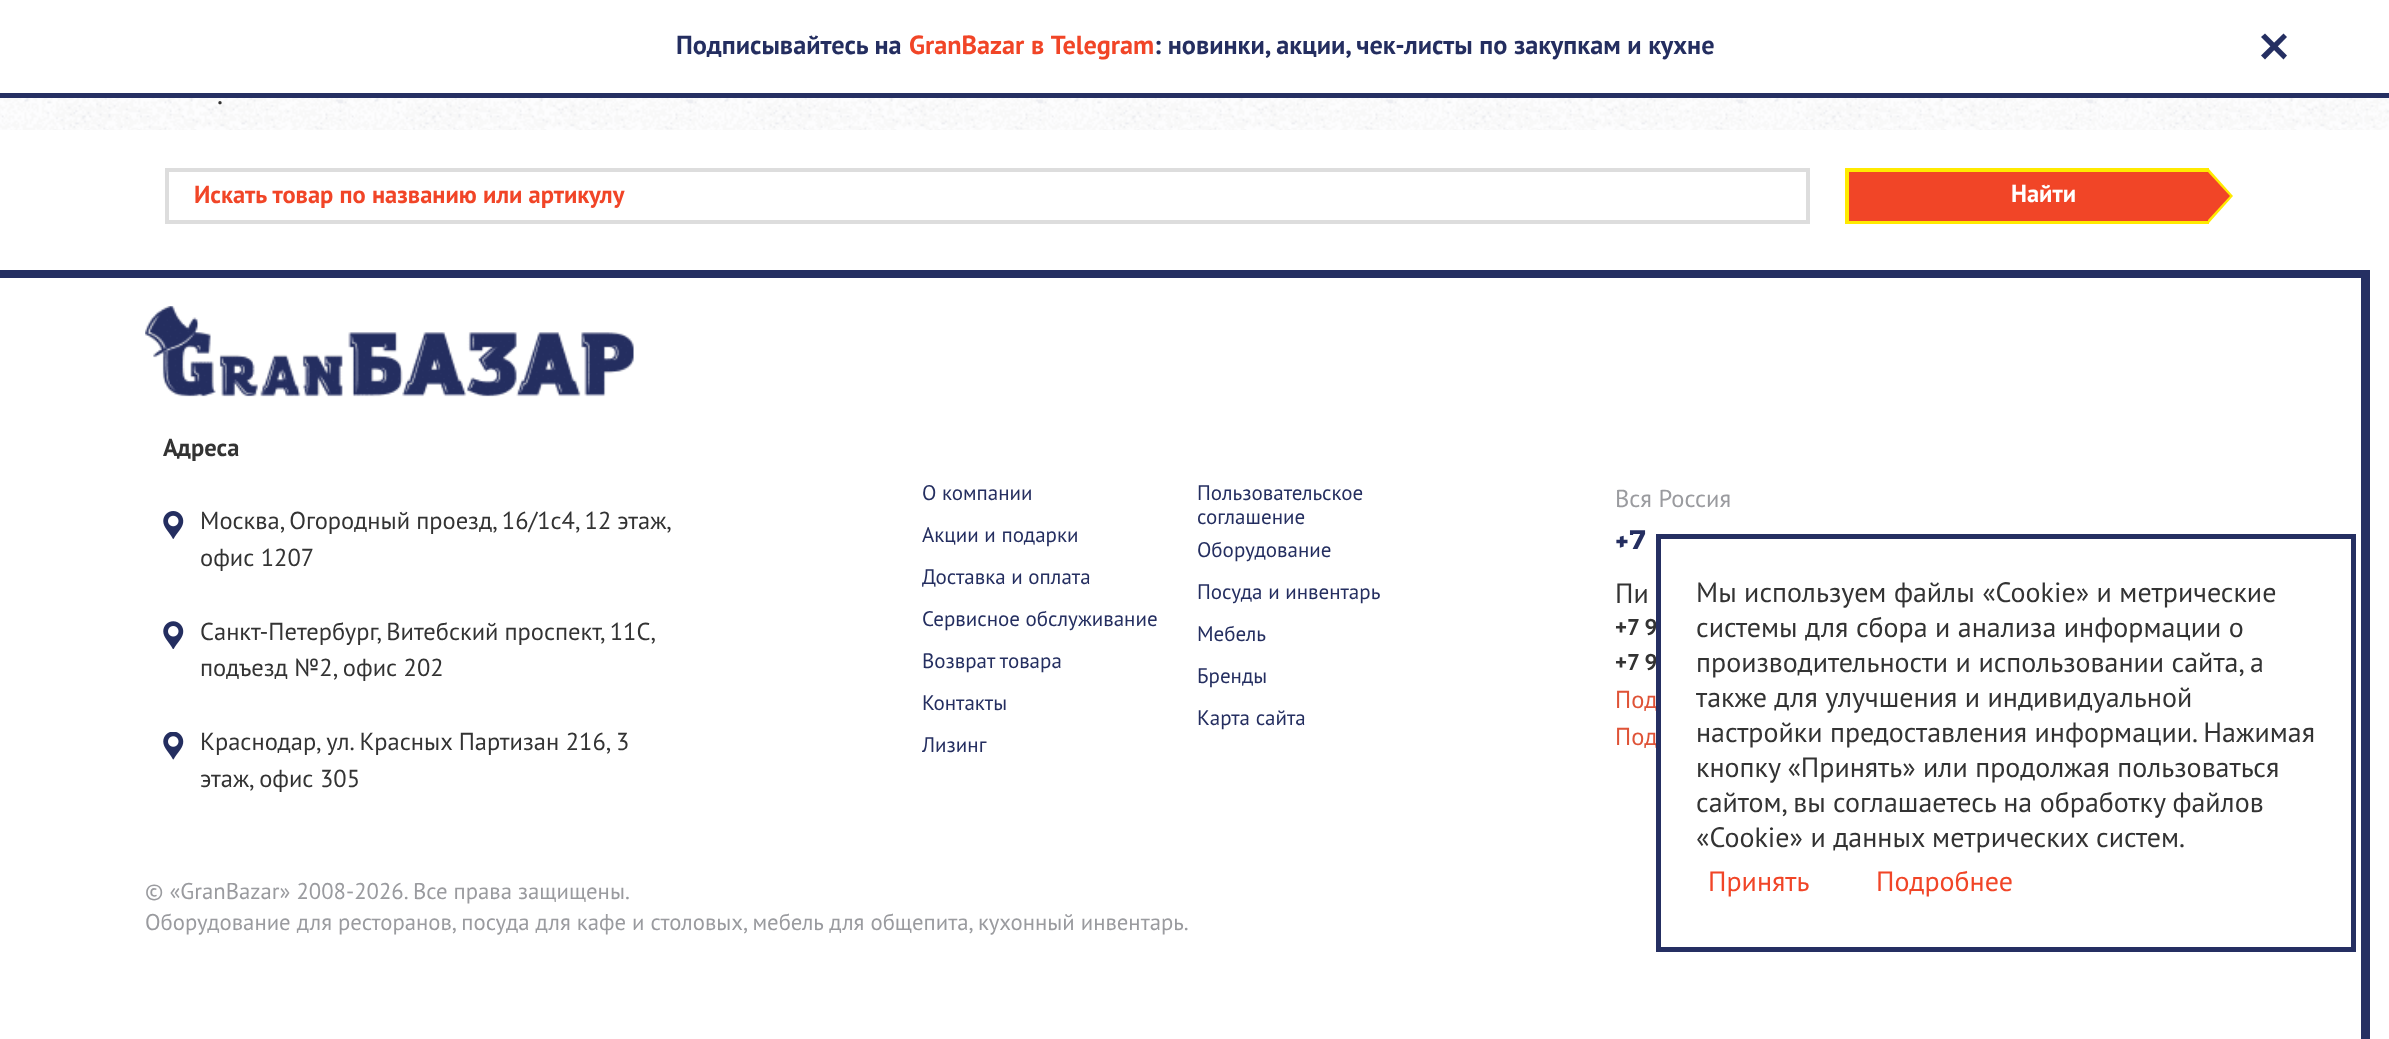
<!DOCTYPE html>
<meta charset="utf-8">
<style>body { margin: 0 } canvas { display: block }</style>
<canvas id="canvas" width="2389" height="1039"></canvas>
<img id="img1" src="images/1.png" hidden>
<img id="img2" src="images/2.png" hidden>
<img id="img3" src="images/3.png" hidden>
<img id="img4" src="images/4.png" hidden>
<img id="img5" src="images/5.png" hidden>
<script>
window.onload = function () {
    const canvas = document.getElementById('canvas');
    const context = canvas.getContext('2d');
    context.miterLimit = 4;
    context.fontKerning = 'normal';

    context.fillStyle = 'rgb(255, 255, 255)';
    context.fillRect(0, 0, 2389, 1039);
    context.drawImage(document.getElementById('img1'), 0, 98, 2389, 32);
    context.fillStyle = 'rgb(37, 47, 98)';
    context.fillRect(0, 93, 2389, 5);
    context.beginPath();
    context.moveTo(2283.5, 33.5);
    context.lineTo(2287, 37);
    context.lineTo(2265, 59.5);
    context.lineTo(2261, 55.5);
    context.closePath();
    context.fill();
    context.beginPath();
    context.moveTo(2261, 37);
    context.lineTo(2265, 33.5);
    context.lineTo(2287, 55.5);
    context.lineTo(2283.5, 59.5);
    context.closePath();
    context.fill();
    context.strokeStyle = 'rgb(221, 221, 221)';
    context.lineWidth = 4;
    context.strokeRect(167, 170, 1641, 52);
    context.fillStyle = 'rgb(255, 234, 0)';
    context.fillRect(1845, 168, 364, 4);
    context.fillRect(1845, 221, 364, 3);
    context.beginPath();
    context.moveTo(2208, 224);
    context.lineTo(2208, 168);
    context.lineTo(2233, 196);
    context.closePath();
    context.fill();
    context.fillStyle = 'rgb(241, 69, 39)';
    context.fillRect(1849, 172, 359, 49);
    context.fillStyle = 'rgb(255, 234, 0)';
    context.fillRect(1845, 168, 4, 56);
    context.fillStyle = 'rgb(241, 69, 39)';
    context.beginPath();
    context.moveTo(2208, 220);
    context.lineTo(2208, 172);
    context.lineTo(2230, 196);
    context.closePath();
    context.fill();
    context.drawImage(document.getElementById('img2'), 145, 306, 489, 91);
    context.drawImage(document.getElementById('img3'), 163, 511, 21, 28);
    context.drawImage(document.getElementById('img4'), 163, 621, 21, 28);
    context.drawImage(document.getElementById('img5'), 163, 732, 21, 28);
    context.fillStyle = 'rgb(37, 47, 98)';
    context.fillRect(0, 270, 2361, 8);
    context.fillRect(2361, 270, 9, 769);
    context.font = 'bold 26.25px PT Sans';
    context.fillStyle = 'rgb(36, 46, 96)';
    context.fillText('Подписывайтесь на', 676, 54);
    context.fillStyle = 'rgb(241, 69, 39)';
    context.fillText('GranBazar в Telegram', 909, 54);
    context.fillStyle = 'rgb(36, 46, 96)';
    context.fillText(': новинки, акции, чек-листы по закупкам и кухне', 1154, 54);
    context.font = '28px PT Sans';
    context.fillStyle = 'rgb(51, 51, 51)';
    context.fillText('.', 217, 104);
    context.font = 'bold 24.5px PT Sans';
    context.fillStyle = 'rgb(241, 69, 39)';
    context.fillText('Искать товар по названию или артикулу', 194, 203);
    context.fillStyle = 'rgb(255, 255, 255)';
    context.fillText('Найти', 2011, 202);
    context.fillStyle = 'rgb(51, 51, 51)';
    context.fillText('Адреса', 163, 456);
    context.wordSpacing = '-0.5px';
    context.font = '24.5px PT Sans';
    context.fillText('Москва, Огородный проезд, 16/1с4, 12 этаж,', 200, 529);
    context.wordSpacing = '0px';
    context.fillText('офис 1207', 200, 566);
    context.wordSpacing = '-0.5px';
    context.fillText('Санкт-Петербург, Витебский проспект, 11С,', 200, 640);
    context.wordSpacing = '0px';
    context.fillText('подъезд №2, офис 202', 200, 676);
    context.fillText('Краснодар, ул. Красных Партизан 216, 3', 200, 750);
    context.fillText('этаж, офис 305', 200, 787);
    context.font = '21px PT Sans';
    context.fillStyle = 'rgb(36, 46, 96)';
    context.fillText('О компании', 922, 500);
    context.fillText('Акции и подарки', 922, 542);
    context.fillText('Доставка и оплата', 922, 584);
    context.fillText('Сервисное обслуживание', 922, 626);
    context.fillText('Возврат товара', 922, 668);
    context.fillText('Контакты', 922, 710);
    context.fillText('Лизинг', 922, 752);
    context.fillText('Пользовательское', 1197, 500);
    context.fillText('соглашение', 1197, 524);
    context.fillText('Оборудование', 1197, 557);
    context.fillText('Посуда и инвентарь', 1197, 599);
    context.fillText('Мебель', 1197, 641);
    context.fillText('Бренды', 1197, 683);
    context.fillText('Карта сайта', 1197, 725);
    context.font = '24.5px PT Sans';
    context.fillStyle = 'rgb(154, 155, 159)';
    context.fillText('Вся Россия', 1615, 507);
    context.font = '900 26.25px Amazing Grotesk';
    context.fillStyle = 'rgb(36, 46, 96)';
    context.fillText('+7', 1615, 549);
    context.font = '28px PT Sans';
    context.fillStyle = 'rgb(51, 51, 51)';
    context.fillText('Пи', 1615, 603);
    context.font = 'bold 22.75px PT Sans';
    context.fillText('+7 9', 1615, 635);
    context.fillText('+7 9', 1615, 670);
    context.font = '24.5px PT Sans';
    context.fillStyle = 'rgb(223, 83, 55)';
    context.fillText('Под', 1615, 708);
    context.fillText('Под', 1615, 745);
    context.font = '22.75px PT Sans';
    context.fillStyle = 'rgb(154, 155, 159)';
    context.fillText('© «GranBazar» 2008-2026. Все права защищены.', 145, 899);
    context.fillText('Оборудование для ресторанов, посуда для кафе и столовых, мебель для общепита, кухонный инвентарь.', 145, 930);
    context.strokeStyle = 'rgb(37, 47, 98)';
    context.lineWidth = 5;
    context.strokeRect(1658.5, 536.5, 695, 413);
    context.font = '28px PT Sans';
    context.fillStyle = 'rgb(51, 51, 51)';
    context.fillText('Мы используем файлы «Cookie» и метрические', 1696, 602);
    context.fillText('системы для сбора и анализа информации о', 1696, 637);
    context.fillText('производительности и использовании сайта, а', 1696, 672);
    context.fillText('также для улучшения и индивидуальной', 1696, 707);
    context.fillText('настройки предоставления информации. Нажимая', 1696, 742);
    context.fillText('кнопку «Принять» или продолжая пользоваться', 1696, 777);
    context.fillText('сайтом, вы соглашаетесь на обработку файлов', 1696, 812);
    context.fillText('«Cookie» и данных метрических систем.', 1696, 847);
    context.fillStyle = 'rgb(241, 69, 39)';
    context.fillText('Принять', 1708, 891);
    context.fillText('Подробнее', 1876, 891);
};
</script>
